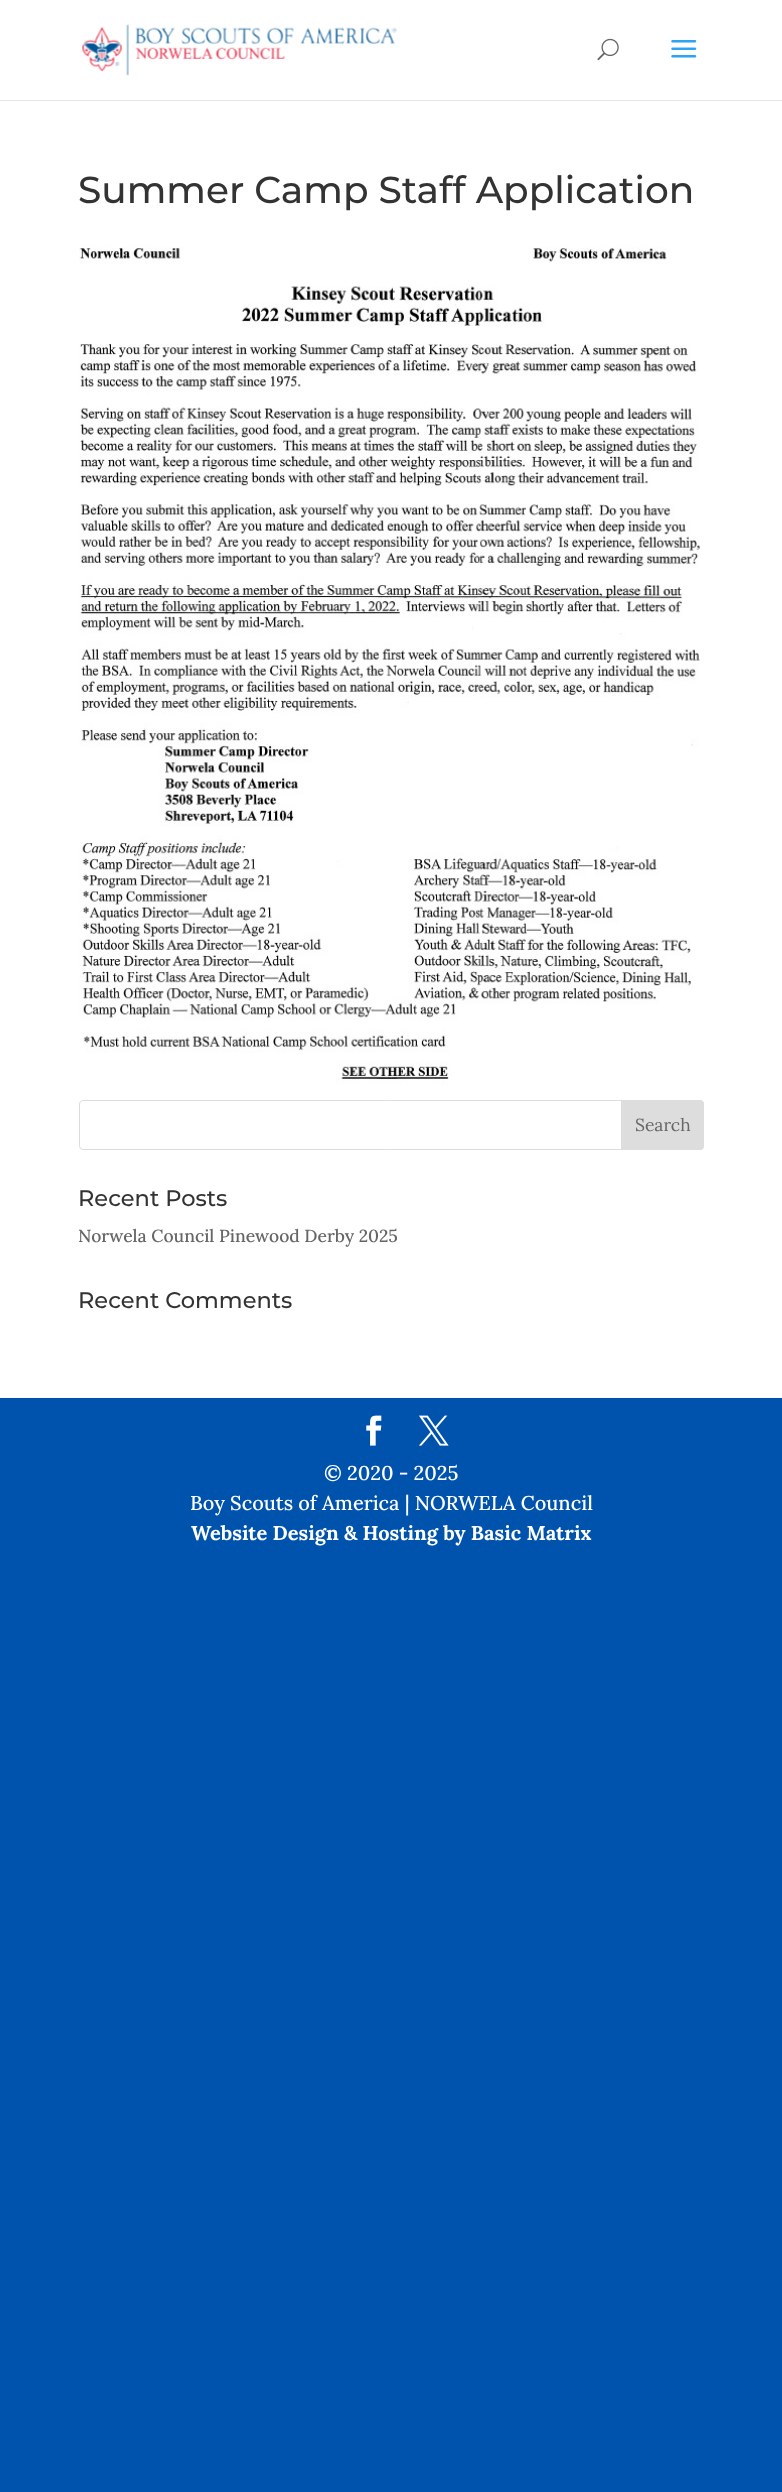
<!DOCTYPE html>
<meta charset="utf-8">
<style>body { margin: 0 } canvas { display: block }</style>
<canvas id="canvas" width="782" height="2492"></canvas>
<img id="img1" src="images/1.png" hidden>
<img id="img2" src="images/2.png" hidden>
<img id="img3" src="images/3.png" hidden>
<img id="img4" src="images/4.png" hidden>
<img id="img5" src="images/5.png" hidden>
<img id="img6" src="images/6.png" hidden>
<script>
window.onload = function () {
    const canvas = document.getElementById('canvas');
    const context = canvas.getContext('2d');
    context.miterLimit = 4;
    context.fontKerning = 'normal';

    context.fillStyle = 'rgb(0, 83, 173)';
    context.fillRect(0, 0, 782, 2492);
    context.fillStyle = 'rgb(230, 230, 230)';
    context.beginPath();
    context.moveTo(0, 100);
    context.lineTo(0, 101);
    context.lineTo(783, 101);
    context.lineTo(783, 1);
    context.lineTo(782, 1);
    context.lineTo(782, 100);
    context.closePath();
    context.fill();
    context.fillStyle = 'rgb(255, 255, 255)';
    context.fillRect(0, 0, 782, 100);
    context.drawImage(document.getElementById('img1'), 82, 24, 315, 52);
    context.drawImage(document.getElementById('img2'), 597, 38, 22, 23);
    context.drawImage(document.getElementById('img3'), 671, 40, 26, 18);
    context.fillRect(0, 101, 782, 1297);
    context.drawImage(document.getElementById('img4'), 79, 246, 621, 839);
    context.beginPath();
    context.roundRect(79.5, 1100.5, 624, 49, 3.5);
    context.strokeStyle = 'rgb(221, 221, 221)';
    context.stroke();
    context.fillStyle = 'rgb(221, 221, 221)';
    context.beginPath();
    context.roundRect(621.5, 1100.5, 82, 49, [0, 3.5, 3.5, 0]);
    context.fill();
    context.stroke();
    context.drawImage(document.getElementById('img5'), 366, 1415, 16, 31);
    context.drawImage(document.getElementById('img6'), 419, 1415, 30, 31);
    context.font = '500 37.5px Montserrat';
    context.fillStyle = 'rgb(51, 51, 51)';
    context.fillText('Summer Camp Staff Application', 78, 203);
    context.font = '17.5px Lora';
    context.fillStyle = 'rgb(102, 102, 102)';
    context.fillText('Search', 635, 1131);
    context.font = '500 22.5px Montserrat';
    context.fillStyle = 'rgb(51, 51, 51)';
    context.fillText('Recent Posts', 78, 1206);
    context.font = '500 17.5px Lora';
    context.fillStyle = 'rgb(102, 102, 102)';
    context.fillText('Norwela Council Pinewood Derby 2025', 78, 1242);
    context.font = '500 22.5px Montserrat';
    context.fillStyle = 'rgb(51, 51, 51)';
    context.fillText('Recent Comments', 78, 1308);
    context.font = '500 20px Lora';
    context.fillStyle = 'rgb(255, 255, 255)';
    context.fillText('© 2020 - 2025', 324, 1480);
    context.fillText('Boy Scouts of America | NORWELA Council', 190, 1510);
    context.font = 'bold 20px Lora';
    context.fillText('Website Design & Hosting by Basic Matrix', 191, 1540);
};
</script>
